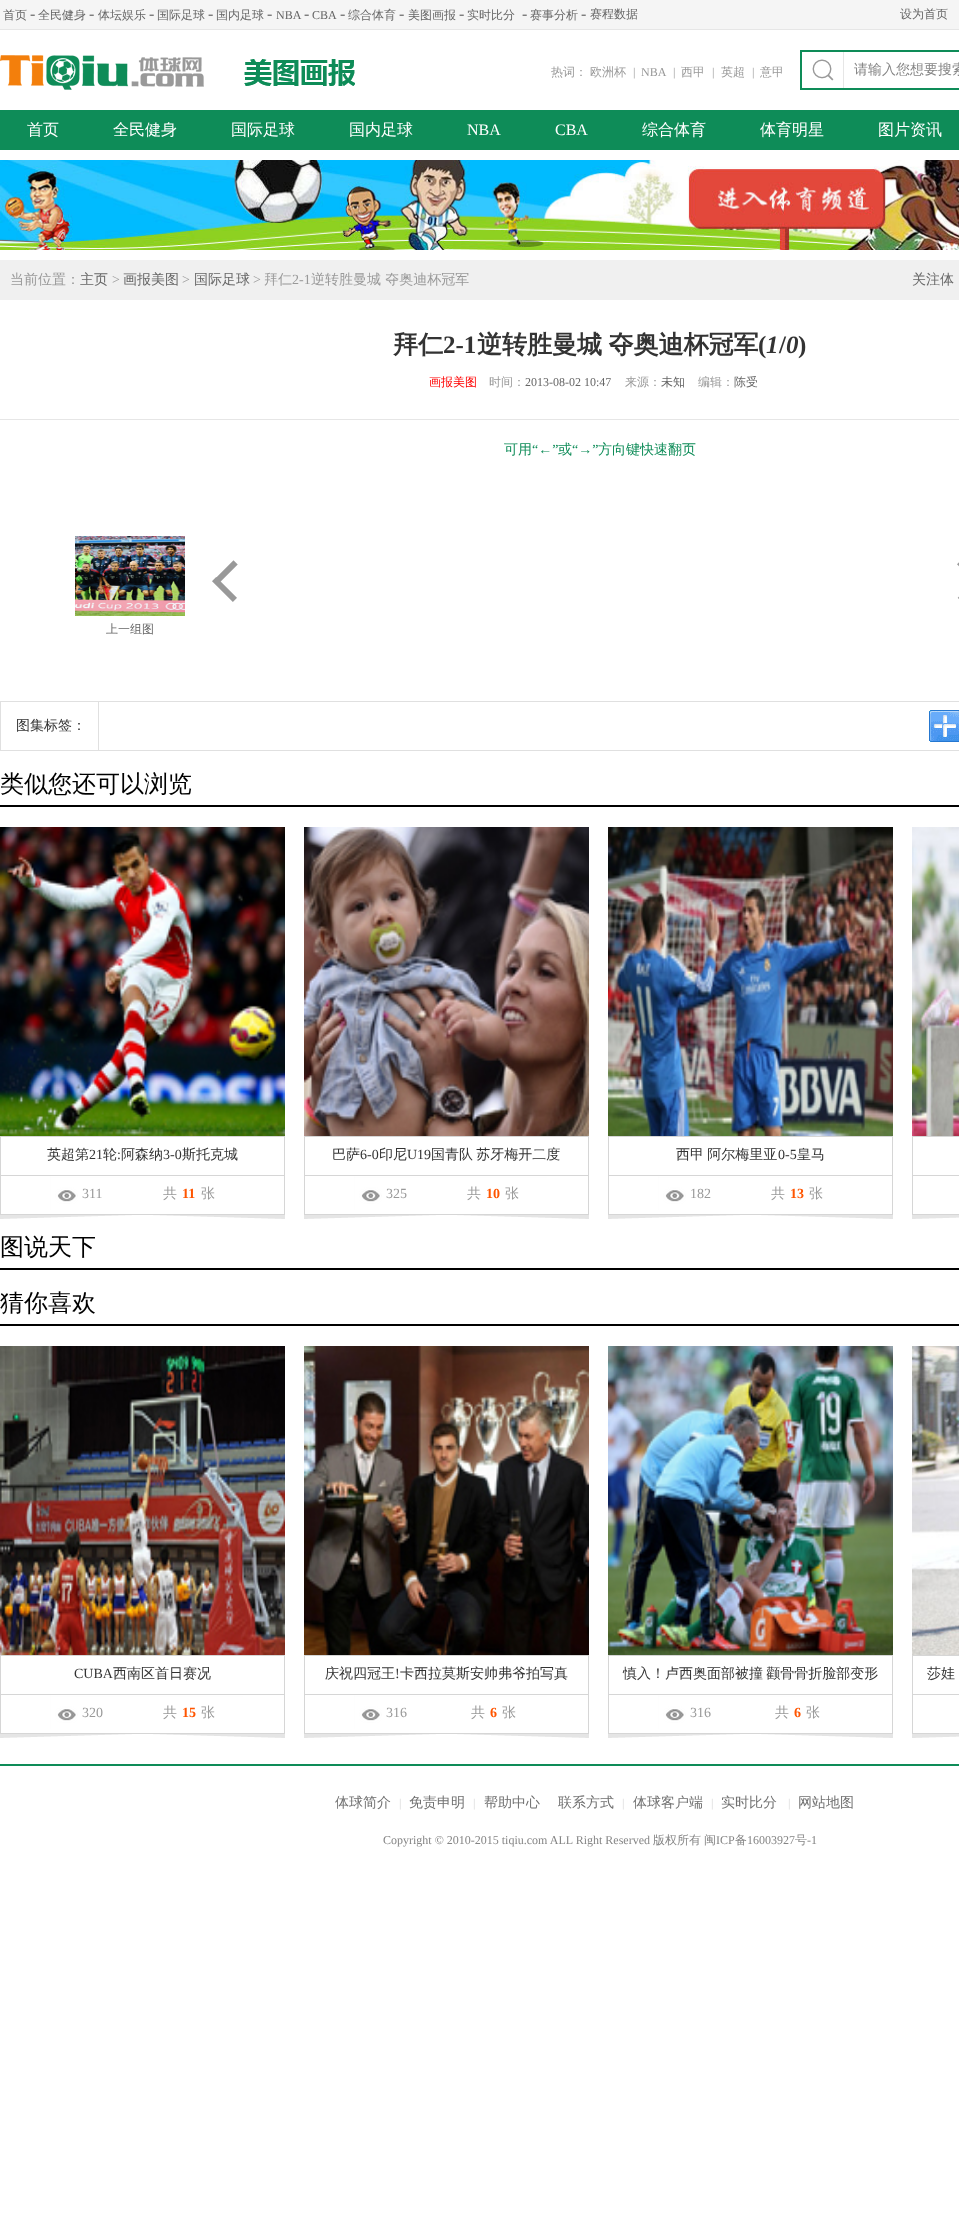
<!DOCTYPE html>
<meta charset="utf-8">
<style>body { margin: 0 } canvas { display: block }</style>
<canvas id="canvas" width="959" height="2232"></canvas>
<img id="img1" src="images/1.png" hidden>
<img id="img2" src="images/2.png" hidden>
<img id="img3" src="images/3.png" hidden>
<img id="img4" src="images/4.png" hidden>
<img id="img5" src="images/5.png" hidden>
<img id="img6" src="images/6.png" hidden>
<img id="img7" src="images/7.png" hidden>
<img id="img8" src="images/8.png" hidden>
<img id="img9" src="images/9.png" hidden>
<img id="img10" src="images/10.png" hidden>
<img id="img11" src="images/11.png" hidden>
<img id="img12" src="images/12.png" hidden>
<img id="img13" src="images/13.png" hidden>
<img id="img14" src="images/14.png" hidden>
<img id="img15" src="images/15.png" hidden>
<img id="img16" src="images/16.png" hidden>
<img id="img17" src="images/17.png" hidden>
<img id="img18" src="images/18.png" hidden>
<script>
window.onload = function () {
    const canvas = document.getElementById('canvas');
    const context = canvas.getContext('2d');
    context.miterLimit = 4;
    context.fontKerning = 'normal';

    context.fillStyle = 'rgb(255, 255, 255)';
    context.fillRect(0, 0, 959, 2232);
    context.fillStyle = 'rgb(245, 245, 245)';
    context.fillRect(0, 0, 959, 29);
    context.fillStyle = 'rgb(230, 230, 230)';
    context.fillRect(0, 29, 959, 1);
    context.drawImage(document.getElementById('img1'), 0, 55, 204, 35);
    context.drawImage(document.getElementById('img2'), 244, 59, 111, 27);
    context.fillStyle = 'rgb(14, 140, 88)';
    context.fillRect(800, 50, 159, 40);
    context.fillStyle = 'rgb(255, 255, 255)';
    context.fillRect(802, 52, 157, 36);
    context.drawImage(document.getElementById('img3'), 812, 52, 32, 36);
    context.fillStyle = 'rgb(14, 140, 88)';
    context.fillRect(0, 110, 959, 40);
    context.drawImage(document.getElementById('img4'), 0, 160, 959, 90);
    context.fillStyle = 'rgb(240, 240, 240)';
    context.fillRect(0, 260, 959, 40);
    context.fillStyle = 'rgb(230, 230, 230)';
    context.fillRect(0, 419, 959, 1);
    context.drawImage(document.getElementById('img5'), 212, 560, 26, 42);
    context.drawImage(document.getElementById('img6'), 957, 562, 2, 37);
    context.drawImage(document.getElementById('img7'), 75, 536, 110, 80);
    context.strokeStyle = 'rgb(224, 224, 224)';
    context.strokeRect(0.5, 701.5, 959, 49);
    context.fillStyle = 'rgb(224, 224, 224)';
    context.fillRect(98, 702, 1, 48);
    context.drawImage(document.getElementById('img8'), 929, 710, 30, 32);
    context.fillStyle = 'rgb(0, 0, 0)';
    context.fillRect(0, 805, 959, 2);
    context.drawImage(document.getElementById('img9'), 0, 827, 285, 309);
    context.drawImage(document.getElementById('img10'), 0, 1136, 285, 83);
    context.drawImage(document.getElementById('img11'), 304, 827, 285, 309);
    context.drawImage(document.getElementById('img10'), 304, 1136, 285, 83);
    context.drawImage(document.getElementById('img12'), 608, 827, 285, 309);
    context.drawImage(document.getElementById('img10'), 608, 1136, 285, 83);
    context.drawImage(document.getElementById('img13'), 912, 827, 47, 309);
    context.drawImage(document.getElementById('img14'), 912, 1136, 47, 83);
    context.fillRect(0, 1268, 959, 2);
    context.fillRect(0, 1324, 959, 2);
    context.drawImage(document.getElementById('img15'), 0, 1346, 285, 309);
    context.drawImage(document.getElementById('img10'), 0, 1655, 285, 83);
    context.drawImage(document.getElementById('img16'), 304, 1346, 285, 309);
    context.drawImage(document.getElementById('img10'), 304, 1655, 285, 83);
    context.drawImage(document.getElementById('img17'), 608, 1346, 285, 309);
    context.drawImage(document.getElementById('img10'), 608, 1655, 285, 83);
    context.drawImage(document.getElementById('img18'), 912, 1346, 47, 309);
    context.drawImage(document.getElementById('img14'), 912, 1655, 47, 83);
    context.fillStyle = 'rgb(14, 140, 88)';
    context.fillRect(0, 1764, 959, 2);
    context.font = '500 12px WenQuanYi Zen Hei';
    context.fillStyle = 'rgb(102, 102, 102)';
    context.fillText('首页', 3, 19);
    context.font = '16px Liberation Serif';
    context.fillText('-', 30, 19);
    context.font = '500 12px WenQuanYi Zen Hei';
    context.fillText('全民健身', 38, 19);
    context.font = '16px Liberation Serif';
    context.fillText('-', 89, 19);
    context.font = '500 12px WenQuanYi Zen Hei';
    context.fillText('体坛娱乐', 98, 19);
    context.font = '16px Liberation Serif';
    context.fillText('-', 149, 19);
    context.font = '500 12px WenQuanYi Zen Hei';
    context.fillText('国际足球', 157, 19);
    context.font = '16px Liberation Serif';
    context.fillText('-', 208, 19);
    context.font = '500 12px WenQuanYi Zen Hei';
    context.fillText('国内足球', 216, 19);
    context.font = '16px Liberation Serif';
    context.fillText('-', 267, 19);
    context.font = '12px Liberation Serif';
    context.fillText('NBA', 276, 19);
    context.font = '16px Liberation Serif';
    context.fillText('-', 304, 19);
    context.font = '12px Liberation Serif';
    context.fillText('CBA', 312, 19);
    context.font = '16px Liberation Serif';
    context.fillText('-', 340, 19);
    context.font = '500 12px WenQuanYi Zen Hei';
    context.fillText('综合体育', 348, 19);
    context.font = '16px Liberation Serif';
    context.fillText('-', 399, 19);
    context.font = '500 12px WenQuanYi Zen Hei';
    context.fillText('美图画报', 408, 19);
    context.font = '16px Liberation Serif';
    context.fillText('-', 459, 19);
    context.font = '500 12px WenQuanYi Zen Hei';
    context.fillText('实时比分', 467, 19);
    context.font = '16px Liberation Serif';
    context.fillText('-', 522, 19);
    context.font = '500 12px WenQuanYi Zen Hei';
    context.fillText('赛事分析', 530, 19);
    context.font = '16px Liberation Serif';
    context.fillText('-', 581, 19);
    context.font = '500 12px WenQuanYi Zen Hei';
    context.fillText('赛程数据', 590, 18);
    context.fillText('设为首页', 900, 18);
    context.fillStyle = 'rgb(153, 153, 153)';
    context.fillText('热词：', 551, 76);
    context.fillText('欧洲杯', 590, 76);
    context.font = '12px Liberation Serif';
    context.fillText('|', 633, 76);
    context.fillText('NBA', 641, 76);
    context.fillText('|', 673, 76);
    context.font = '500 12px WenQuanYi Zen Hei';
    context.fillText('西甲', 681, 76);
    context.font = '12px Liberation Serif';
    context.fillText('|', 712, 76);
    context.font = '500 12px WenQuanYi Zen Hei';
    context.fillText('英超', 721, 76);
    context.font = '12px Liberation Serif';
    context.fillText('|', 752, 76);
    context.font = '500 12px WenQuanYi Zen Hei';
    context.fillText('意甲', 760, 76);
    context.font = '500 14px WenQuanYi Zen Hei';
    context.fillStyle = 'rgb(133, 133, 133)';
    context.fillText('请输入您想要搜索', 854, 74);
    context.font = '500 16px WenQuanYi Zen Hei';
    context.fillStyle = 'rgb(255, 255, 255)';
    context.fillText('首页', 27, 135);
    context.fillText('全民健身', 113, 135);
    context.fillText('国际足球', 231, 135);
    context.fillText('国内足球', 349, 135);
    context.font = '16px Liberation Serif';
    context.fillText('NBA', 467, 135);
    context.fillText('CBA', 555, 135);
    context.font = '500 16px WenQuanYi Zen Hei';
    context.fillText('综合体育', 642, 135);
    context.fillText('体育明星', 760, 135);
    context.fillText('图片资讯', 878, 135);
    context.font = '500 14px WenQuanYi Zen Hei';
    context.fillStyle = 'rgb(153, 153, 153)';
    context.fillText('当前位置：', 10, 284);
    context.fillStyle = 'rgb(102, 102, 102)';
    context.fillText('主页', 80, 284);
    context.font = '14px Liberation Serif';
    context.fillStyle = 'rgb(153, 153, 153)';
    context.fillText('>', 112, 284);
    context.font = '500 14px WenQuanYi Zen Hei';
    context.fillStyle = 'rgb(102, 102, 102)';
    context.fillText('画报美图', 123, 284);
    context.font = '14px Liberation Serif';
    context.fillStyle = 'rgb(153, 153, 153)';
    context.fillText('>', 182, 284);
    context.font = '500 14px WenQuanYi Zen Hei';
    context.fillStyle = 'rgb(102, 102, 102)';
    context.fillText('国际足球', 194, 284);
    context.font = '14px Liberation Serif';
    context.fillStyle = 'rgb(153, 153, 153)';
    context.fillText('>', 253, 284);
    context.font = '500 14px WenQuanYi Zen Hei';
    context.fillText('拜仁', 264, 284);
    context.font = '14px Liberation Serif';
    context.fillText('2-1', 292, 284);
    context.font = '500 14px WenQuanYi Zen Hei';
    context.fillText('逆转胜曼城 夺奥迪杯冠军', 311, 284);
    context.fillStyle = 'rgb(102, 102, 102)';
    context.fillText('关注体', 912, 284);
    context.font = 'bold 25px WenQuanYi Zen Hei';
    context.fillStyle = 'rgb(51, 51, 51)';
    context.fillText('拜仁', 393, 353);
    context.font = 'bold 25px Liberation Serif';
    context.fillText('2-1', 443, 353);
    context.wordSpacing = '-1px';
    context.font = 'bold 25px WenQuanYi Zen Hei';
    context.fillText('逆转胜曼城 夺奥迪杯冠军', 477, 353);
    context.wordSpacing = '0px';
    context.font = 'bold 25px Liberation Serif';
    context.fillText('(', 758, 353);
    context.font = 'italic bold 25px Liberation Serif';
    context.fillText('1', 766, 353);
    context.font = 'bold 25px Liberation Serif';
    context.fillText('/', 779, 353);
    context.font = 'italic bold 25px Liberation Serif';
    context.fillText('0', 786, 353);
    context.font = 'bold 25px Liberation Serif';
    context.fillText(')', 798, 353);
    context.font = '500 12px WenQuanYi Zen Hei';
    context.fillStyle = 'rgb(255, 0, 0)';
    context.fillText('画报美图', 429, 386);
    context.fillStyle = 'rgb(153, 153, 153)';
    context.fillText('时间：', 489, 386);
    context.font = '12px Liberation Serif';
    context.fillStyle = 'rgb(102, 102, 102)';
    context.fillText('2013-08-02 10:47', 525, 386);
    context.font = '500 12px WenQuanYi Zen Hei';
    context.fillStyle = 'rgb(153, 153, 153)';
    context.fillText('来源：', 625, 386);
    context.fillStyle = 'rgb(102, 102, 102)';
    context.fillText('未知', 661, 386);
    context.fillStyle = 'rgb(153, 153, 153)';
    context.fillText('编辑：', 698, 386);
    context.fillStyle = 'rgb(102, 102, 102)';
    context.fillText('陈受', 734, 386);
    context.font = '500 14px WenQuanYi Zen Hei';
    context.fillStyle = 'rgb(14, 140, 88)';
    context.fillText('可用', 504, 454);
    context.font = '14px Liberation Serif';
    context.fillText('“←”', 532, 454);
    context.font = '500 14px WenQuanYi Zen Hei';
    context.fillText('或', 558, 454);
    context.font = '14px Liberation Serif';
    context.fillText('“→”', 572, 454);
    context.font = '500 14px WenQuanYi Zen Hei';
    context.fillText('方向键快速翻页', 598, 454);
    context.font = '500 12px WenQuanYi Zen Hei';
    context.fillStyle = 'rgb(102, 102, 102)';
    context.fillText('上一组图', 106, 633);
    context.font = '500 14px WenQuanYi Zen Hei';
    context.fillStyle = 'rgb(51, 51, 51)';
    context.fillText('图集标签：', 16, 730);
    context.font = '500 24px WenQuanYi Zen Hei';
    context.fillStyle = 'rgb(0, 0, 0)';
    context.fillText('类似您还可以浏览', 0, 792);
    context.font = '500 14px WenQuanYi Zen Hei';
    context.fillStyle = 'rgb(51, 51, 51)';
    context.fillText('英超第', 47, 1159);
    context.font = '14px Liberation Serif';
    context.fillText('21', 89, 1159);
    context.font = '500 14px WenQuanYi Zen Hei';
    context.fillText('轮', 103, 1159);
    context.font = '14px Liberation Serif';
    context.fillText(':', 117, 1159);
    context.font = '500 14px WenQuanYi Zen Hei';
    context.fillText('阿森纳', 121, 1159);
    context.font = '14px Liberation Serif';
    context.fillText('3-0', 163, 1159);
    context.font = '500 14px WenQuanYi Zen Hei';
    context.fillText('斯托克城', 182, 1159);
    context.font = '14px Liberation Serif';
    context.fillStyle = 'rgb(153, 153, 153)';
    context.fillText('311', 82, 1198);
    context.font = '500 14px WenQuanYi Zen Hei';
    context.fillText('共', 163, 1198);
    context.font = 'bold 14px Liberation Serif';
    context.fillStyle = 'rgb(255, 85, 0)';
    context.fillText('11', 182, 1198);
    context.font = '500 14px WenQuanYi Zen Hei';
    context.fillStyle = 'rgb(153, 153, 153)';
    context.fillText('张', 201, 1198);
    context.fillStyle = 'rgb(51, 51, 51)';
    context.fillText('巴萨', 332, 1159);
    context.font = '14px Liberation Serif';
    context.fillText('6-0', 360, 1159);
    context.font = '500 14px WenQuanYi Zen Hei';
    context.fillText('印尼', 379, 1159);
    context.font = '14px Liberation Serif';
    context.fillText('U19', 407, 1159);
    context.wordSpacing = '-1px';
    context.font = '500 14px WenQuanYi Zen Hei';
    context.fillText('国青队 苏牙梅开二度', 431, 1159);
    context.wordSpacing = '0px';
    context.font = '14px Liberation Serif';
    context.fillStyle = 'rgb(153, 153, 153)';
    context.fillText('325', 386, 1198);
    context.font = '500 14px WenQuanYi Zen Hei';
    context.fillText('共', 467, 1198);
    context.font = 'bold 14px Liberation Serif';
    context.fillStyle = 'rgb(255, 85, 0)';
    context.fillText('10', 486, 1198);
    context.font = '500 14px WenQuanYi Zen Hei';
    context.fillStyle = 'rgb(153, 153, 153)';
    context.fillText('张', 505, 1198);
    context.wordSpacing = '-1px';
    context.fillStyle = 'rgb(51, 51, 51)';
    context.fillText('西甲 阿尔梅里亚', 676, 1159);
    context.wordSpacing = '0px';
    context.font = '14px Liberation Serif';
    context.fillText('0-5', 778, 1159);
    context.font = '500 14px WenQuanYi Zen Hei';
    context.fillText('皇马', 797, 1159);
    context.font = '14px Liberation Serif';
    context.fillStyle = 'rgb(153, 153, 153)';
    context.fillText('182', 690, 1198);
    context.font = '500 14px WenQuanYi Zen Hei';
    context.fillText('共', 771, 1198);
    context.font = 'bold 14px Liberation Serif';
    context.fillStyle = 'rgb(255, 85, 0)';
    context.fillText('13', 790, 1198);
    context.font = '500 14px WenQuanYi Zen Hei';
    context.fillStyle = 'rgb(153, 153, 153)';
    context.fillText('张', 809, 1198);
    context.font = '500 24px WenQuanYi Zen Hei';
    context.fillStyle = 'rgb(0, 0, 0)';
    context.fillText('图说天下', 0, 1255);
    context.fillText('猜你喜欢', 0, 1311);
    context.font = '14px Liberation Serif';
    context.fillStyle = 'rgb(51, 51, 51)';
    context.fillText('CUBA', 74, 1678);
    context.font = '500 14px WenQuanYi Zen Hei';
    context.fillText('西南区首日赛况', 113, 1678);
    context.font = '14px Liberation Serif';
    context.fillStyle = 'rgb(153, 153, 153)';
    context.fillText('320', 82, 1717);
    context.font = '500 14px WenQuanYi Zen Hei';
    context.fillText('共', 163, 1717);
    context.font = 'bold 14px Liberation Serif';
    context.fillStyle = 'rgb(255, 85, 0)';
    context.fillText('15', 182, 1717);
    context.font = '500 14px WenQuanYi Zen Hei';
    context.fillStyle = 'rgb(153, 153, 153)';
    context.fillText('张', 201, 1717);
    context.fillStyle = 'rgb(51, 51, 51)';
    context.fillText('庆祝四冠王', 325, 1678);
    context.font = '14px Liberation Serif';
    context.fillText('!', 395, 1678);
    context.font = '500 14px WenQuanYi Zen Hei';
    context.fillText('卡西拉莫斯安帅弗爷拍写真', 400, 1678);
    context.font = '14px Liberation Serif';
    context.fillStyle = 'rgb(153, 153, 153)';
    context.fillText('316', 386, 1717);
    context.font = '500 14px WenQuanYi Zen Hei';
    context.fillText('共', 471, 1717);
    context.font = 'bold 14px Liberation Serif';
    context.fillStyle = 'rgb(255, 85, 0)';
    context.fillText('6', 490, 1717);
    context.font = '500 14px WenQuanYi Zen Hei';
    context.fillStyle = 'rgb(153, 153, 153)';
    context.fillText('张', 502, 1717);
    context.wordSpacing = '-1px';
    context.fillStyle = 'rgb(51, 51, 51)';
    context.fillText('慎入！卢西奥面部被撞 颧骨骨折脸部变形', 623, 1678);
    context.wordSpacing = '0px';
    context.font = '14px Liberation Serif';
    context.fillStyle = 'rgb(153, 153, 153)';
    context.fillText('316', 690, 1717);
    context.font = '500 14px WenQuanYi Zen Hei';
    context.fillText('共', 775, 1717);
    context.font = 'bold 14px Liberation Serif';
    context.fillStyle = 'rgb(255, 85, 0)';
    context.fillText('6', 794, 1717);
    context.font = '500 14px WenQuanYi Zen Hei';
    context.fillStyle = 'rgb(153, 153, 153)';
    context.fillText('张', 806, 1717);
    context.wordSpacing = '-1px';
    context.fillStyle = 'rgb(51, 51, 51)';
    context.fillText('莎娃', 927, 1678);
    context.wordSpacing = '0px';
    context.fillStyle = 'rgb(112, 112, 112)';
    context.fillText('体球简介', 335, 1807);
    context.font = '12px Liberation Serif';
    context.fillStyle = 'rgb(214, 214, 214)';
    context.fillText('|', 399, 1807);
    context.font = '500 14px WenQuanYi Zen Hei';
    context.fillStyle = 'rgb(112, 112, 112)';
    context.fillText('免责申明', 409, 1807);
    context.font = '12px Liberation Serif';
    context.fillStyle = 'rgb(214, 214, 214)';
    context.fillText('|', 473, 1807);
    context.font = '500 14px WenQuanYi Zen Hei';
    context.fillStyle = 'rgb(112, 112, 112)';
    context.fillText('帮助中心', 484, 1807);
    context.fillText('联系方式', 558, 1807);
    context.font = '12px Liberation Serif';
    context.fillStyle = 'rgb(214, 214, 214)';
    context.fillText('|', 622, 1807);
    context.font = '500 14px WenQuanYi Zen Hei';
    context.fillStyle = 'rgb(112, 112, 112)';
    context.fillText('体球客户端', 633, 1807);
    context.font = '12px Liberation Serif';
    context.fillStyle = 'rgb(214, 214, 214)';
    context.fillText('|', 711, 1807);
    context.font = '500 14px WenQuanYi Zen Hei';
    context.fillStyle = 'rgb(112, 112, 112)';
    context.fillText('实时比分', 721, 1807);
    context.font = '12px Liberation Serif';
    context.fillStyle = 'rgb(214, 214, 214)';
    context.fillText('|', 788, 1807);
    context.font = '500 14px WenQuanYi Zen Hei';
    context.fillStyle = 'rgb(112, 112, 112)';
    context.fillText('网站地图', 798, 1807);
    context.font = '12px Liberation Serif';
    context.fillStyle = 'rgb(133, 133, 133)';
    context.fillText('Copyright © 2010-2015 tiqiu.com ALL Right Reserved', 383, 1844);
    context.font = '500 12px WenQuanYi Zen Hei';
    context.fillText('版权所有', 653, 1844);
    context.fillText('闽', 704, 1844);
    context.font = '12px Liberation Serif';
    context.fillText('ICP', 716, 1844);
    context.font = '500 12px WenQuanYi Zen Hei';
    context.fillText('备', 735, 1844);
    context.font = '12px Liberation Serif';
    context.fillText('16003927', 747, 1844);
    context.font = '500 12px WenQuanYi Zen Hei';
    context.fillText('号', 795, 1844);
    context.font = '12px Liberation Serif';
    context.fillText('-1', 807, 1844);
};
</script>
